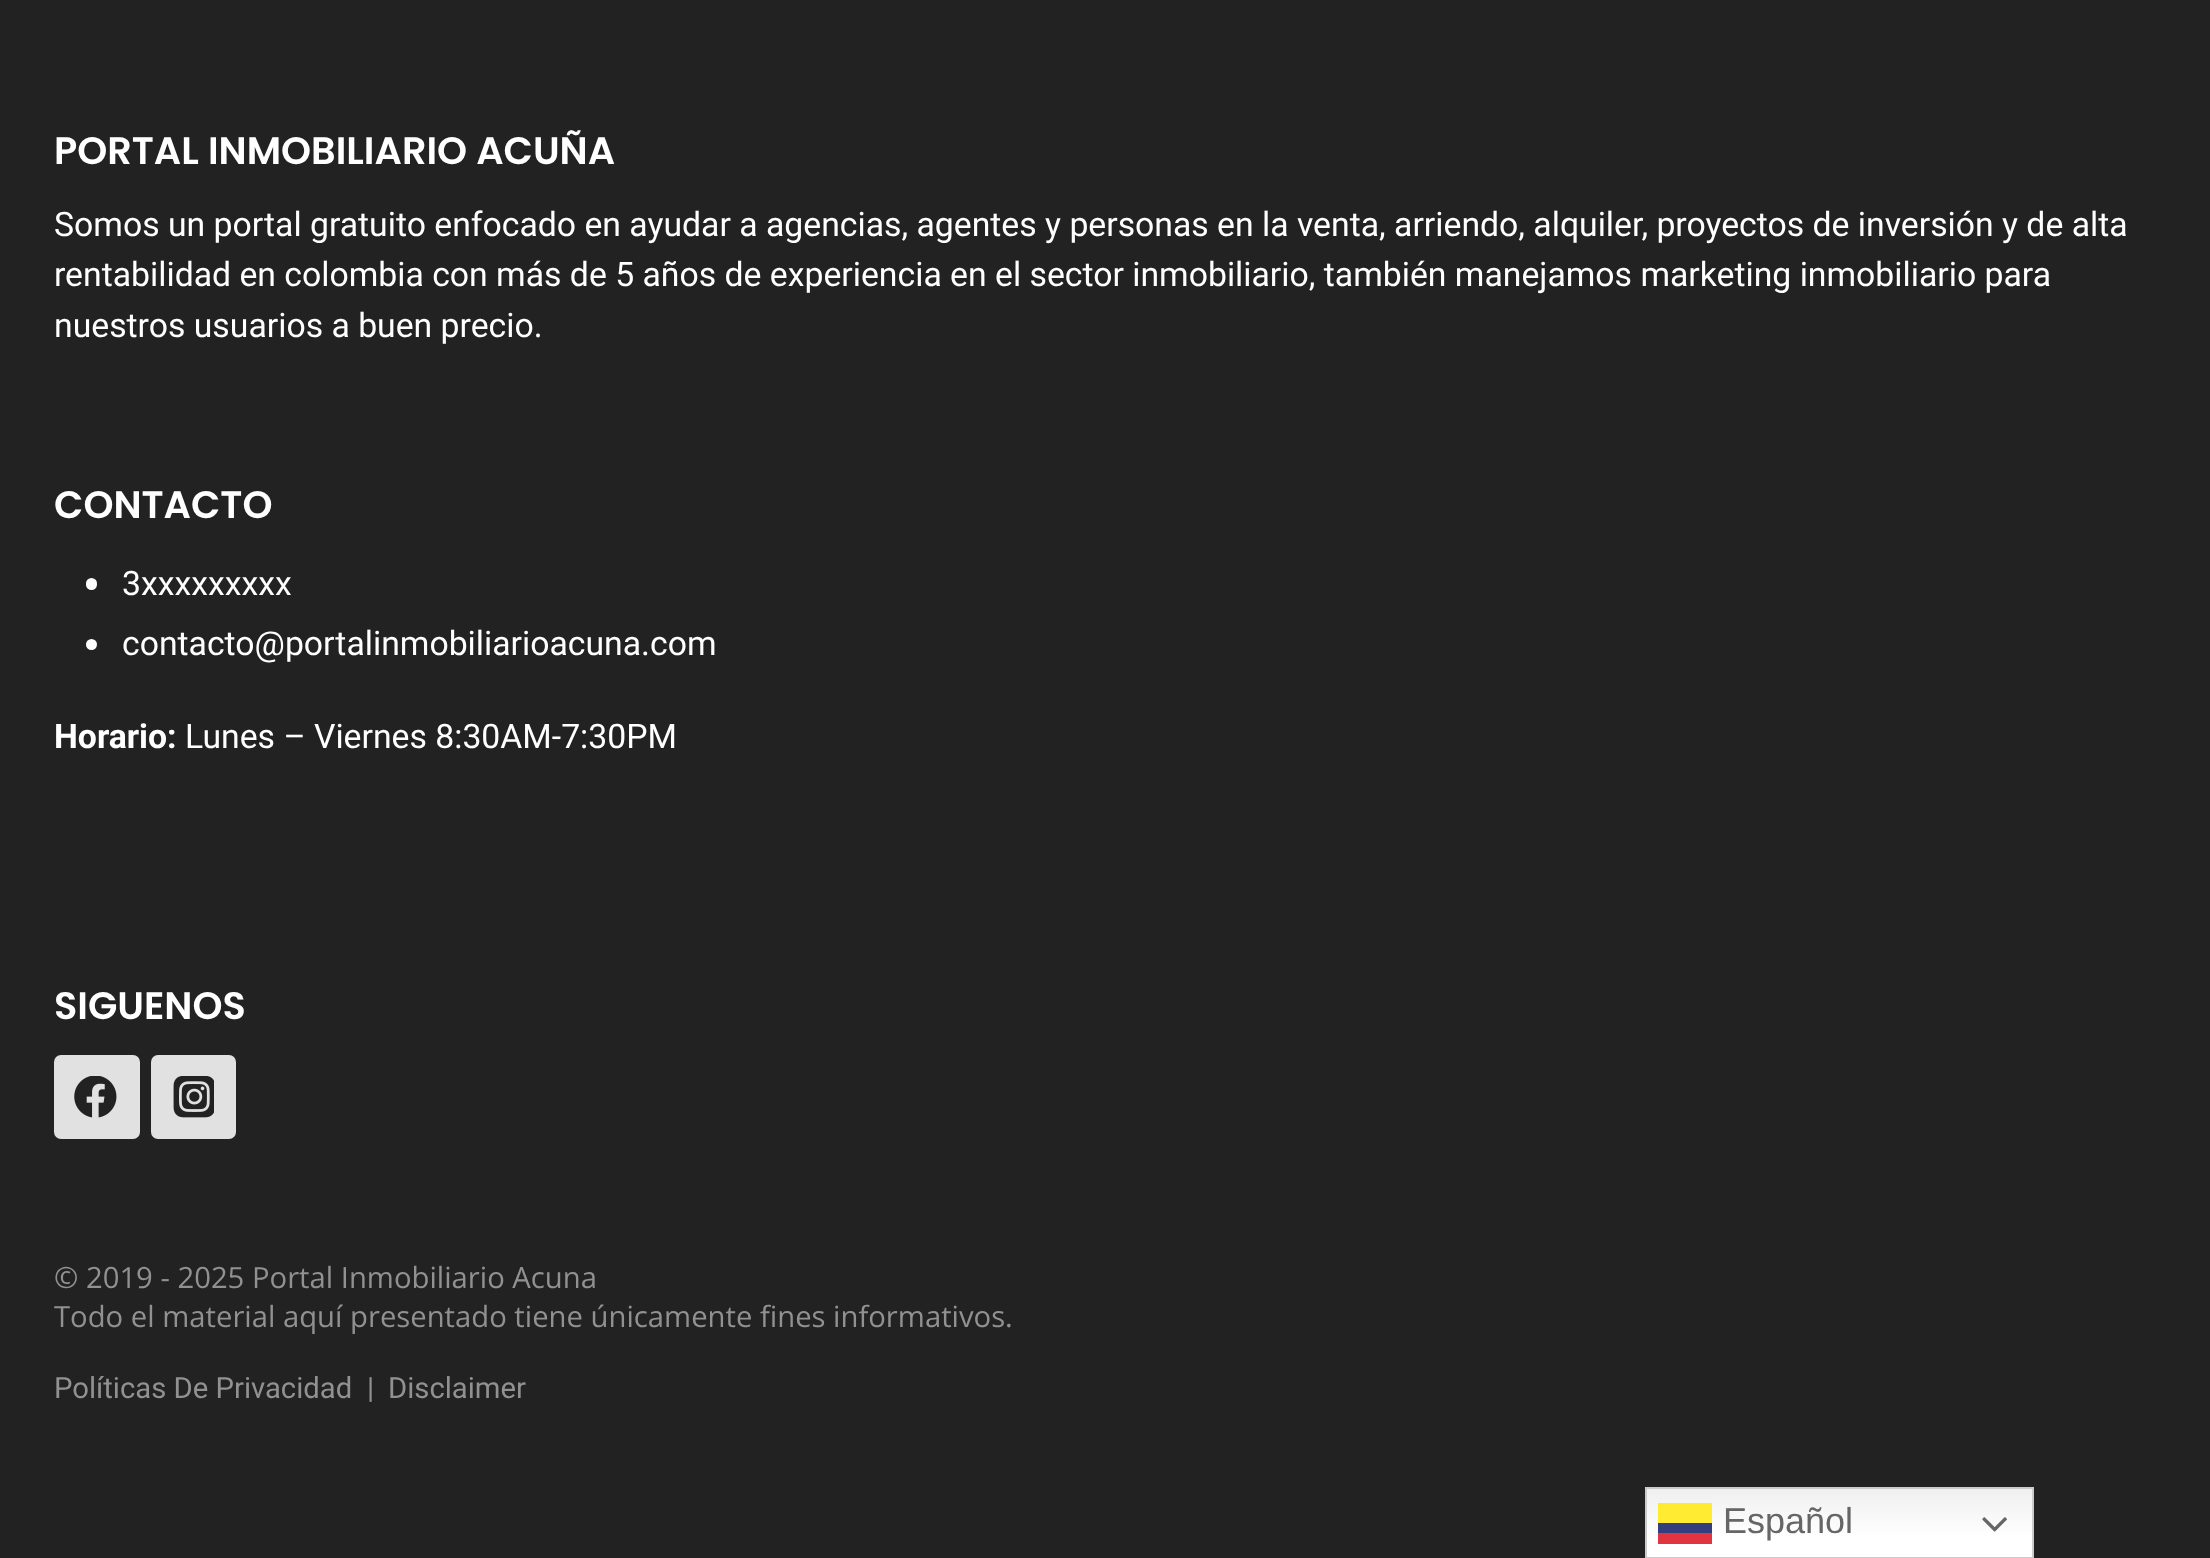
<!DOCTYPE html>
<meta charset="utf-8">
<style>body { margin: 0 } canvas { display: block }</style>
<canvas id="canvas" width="2210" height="1558"></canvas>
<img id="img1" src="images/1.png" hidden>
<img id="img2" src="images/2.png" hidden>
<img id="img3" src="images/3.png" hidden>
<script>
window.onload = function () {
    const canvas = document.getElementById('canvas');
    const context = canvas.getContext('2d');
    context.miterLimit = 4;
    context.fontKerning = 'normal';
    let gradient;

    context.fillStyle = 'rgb(34, 34, 34)';
    context.fillRect(0, 0, 2210, 1558);
    context.fillStyle = 'rgb(255, 255, 255)';
    context.beginPath();
    context.roundRect(86, 578, 11, 12, 5.5);
    context.fill();
    context.beginPath();
    context.arc(91.5, 644.5, 5.5, 0, 2 * Math.PI);
    context.fill();
    context.fillStyle = 'rgb(225, 225, 225)';
    context.beginPath();
    context.roundRect(54, 1055, 86, 84, 7);
    context.fill();
    context.drawImage(document.getElementById('img1'), 74, 1076, 43, 42);
    context.beginPath();
    context.roundRect(151, 1055, 85, 84, 7);
    context.fill();
    context.drawImage(document.getElementById('img2'), 173, 1076, 41, 42);
    gradient = context.createLinearGradient(1839, 1487, 1839, 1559);
    gradient.addColorStop(0, 'rgb(239, 239, 239)');
    gradient.addColorStop(0.7, 'rgb(255, 255, 255)');
    context.fillStyle = gradient;
    context.fillRect(1647, 1489, 385, 68);
    gradient = context.createLinearGradient(1839, 1487, 1839, 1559);
    gradient.addColorStop(0, 'rgb(252, 233, 48)');
    gradient.addColorStop(0.7, 'rgb(255, 237, 51)');
    context.fillStyle = gradient;
    context.fillRect(1658, 1503, 54, 20);
    context.strokeStyle = 'rgb(204, 204, 204)';
    context.lineWidth = 2;
    context.strokeRect(1646, 1488, 387, 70);
    context.fillStyle = 'rgb(51, 63, 124)';
    context.fillRect(1658, 1523, 54, 10);
    context.drawImage(document.getElementById('img3'), 1982, 1517, 25, 15);
    context.fillStyle = 'rgb(225, 51, 64)';
    context.fillRect(1658, 1533, 54, 11);
    context.font = '600 38.25px Poppins';
    context.fillStyle = 'rgb(255, 255, 255)';
    context.fillText('PORTAL INMOBILIARIO ACUÑA', 54, 164);
    context.font = '33.75px Roboto';
    context.fillText('Somos un portal gratuito enfocado en ayudar a agencias, agentes y personas en la venta, arriendo, alquiler, proyectos de inversión y de alta', 54, 236);
    context.fillText('rentabilidad en colombia con más de 5 años de experiencia en el sector inmobiliario, también manejamos marketing inmobiliario para', 54, 286);
    context.fillText('nuestros usuarios a buen precio.', 54, 337);
    context.font = '600 38.25px Poppins';
    context.fillText('CONTACTO', 54, 518);
    context.font = '33.75px Roboto';
    context.fillText('3xxxxxxxxx', 122, 595);
    context.fillText('contacto@portalinmobiliarioacuna.com', 122, 655);
    context.font = 'bold 33.75px Roboto';
    context.fillText('Horario:', 54, 748);
    context.font = '33.75px Roboto';
    context.fillText('Lunes – Viernes 8:30AM-7:30PM', 185, 748);
    context.font = '600 38.25px Poppins';
    context.fillText('SIGUENOS', 54, 1019);
    context.font = '29.25px Open Sans';
    context.fillStyle = 'rgb(145, 145, 145)';
    context.fillText('© 2019 - 2025 Portal Inmobiliario Acuna', 54, 1288);
    context.fillText('Todo el material aquí presentado tiene únicamente fines informativos.', 54, 1327);
    context.font = '29.25px Roboto';
    context.fillText('Políticas De Privacidad', 54, 1398);
    context.fillText('|', 367, 1398);
    context.fillText('Disclaimer', 388, 1398);
    context.font = '36px Liberation Sans';
    context.fillStyle = 'rgb(102, 102, 102)';
    context.fillText('Español', 1723, 1533);
};
</script>
